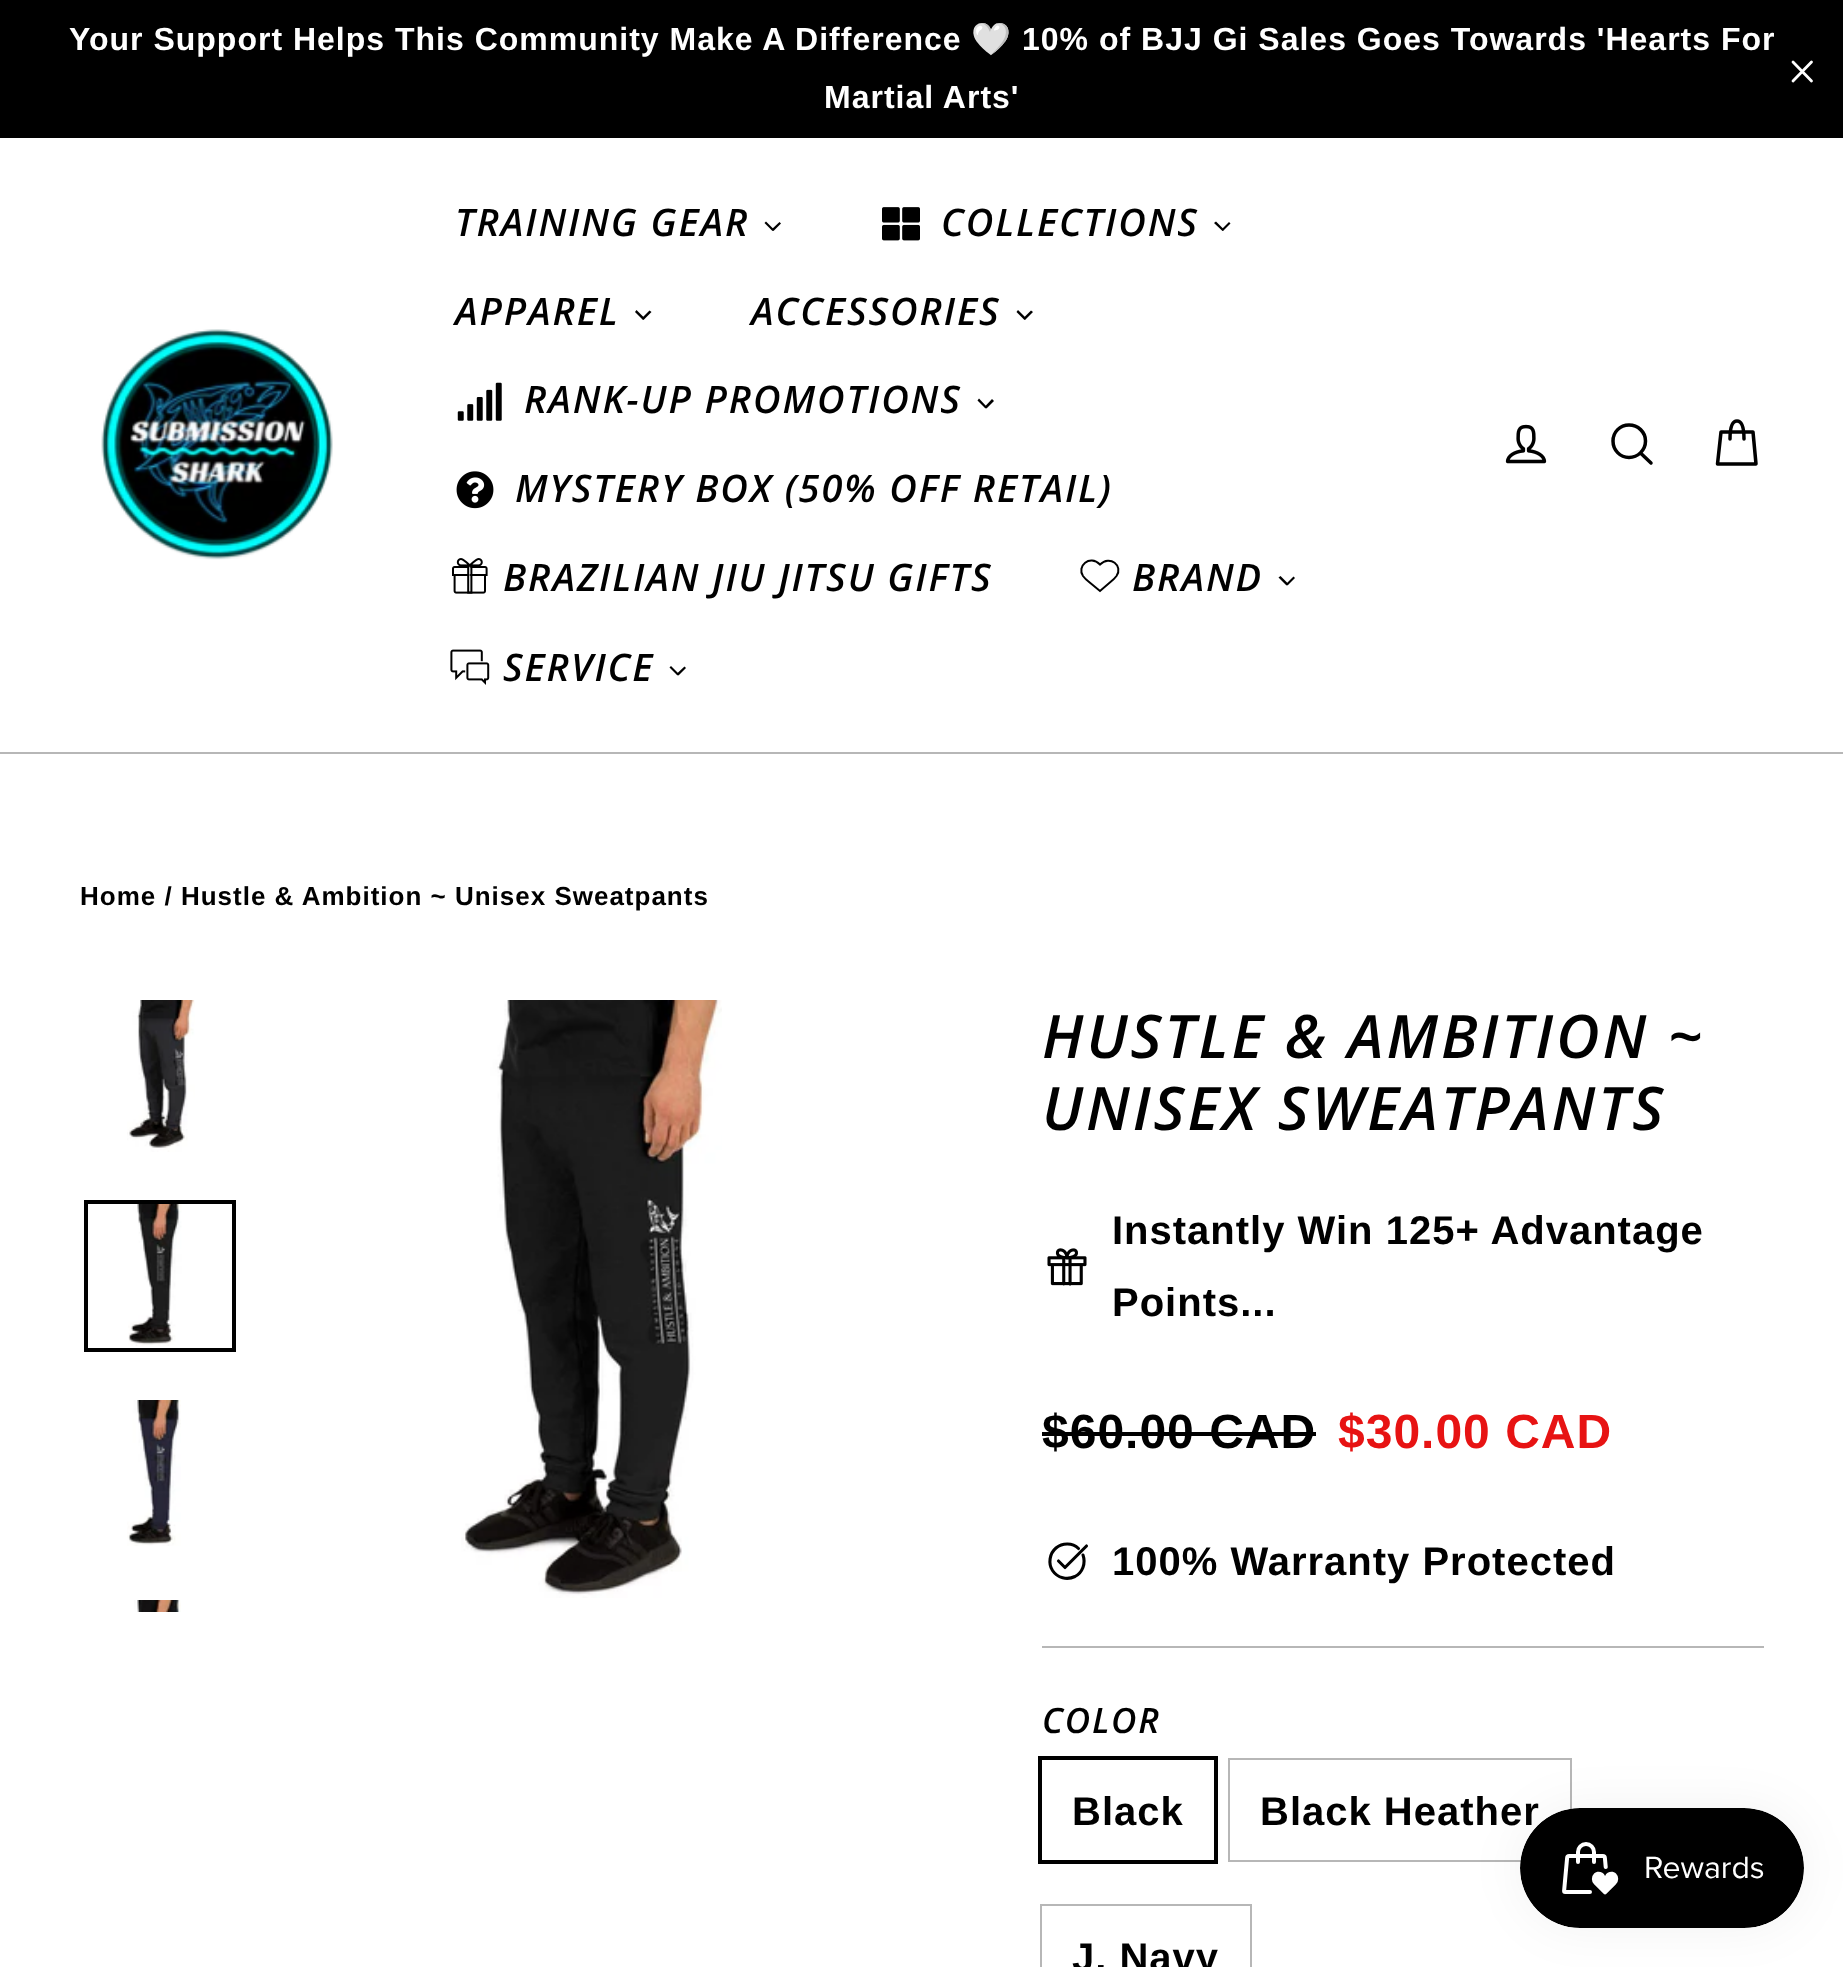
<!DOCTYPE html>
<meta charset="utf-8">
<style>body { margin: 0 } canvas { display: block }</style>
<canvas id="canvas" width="1843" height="1967"></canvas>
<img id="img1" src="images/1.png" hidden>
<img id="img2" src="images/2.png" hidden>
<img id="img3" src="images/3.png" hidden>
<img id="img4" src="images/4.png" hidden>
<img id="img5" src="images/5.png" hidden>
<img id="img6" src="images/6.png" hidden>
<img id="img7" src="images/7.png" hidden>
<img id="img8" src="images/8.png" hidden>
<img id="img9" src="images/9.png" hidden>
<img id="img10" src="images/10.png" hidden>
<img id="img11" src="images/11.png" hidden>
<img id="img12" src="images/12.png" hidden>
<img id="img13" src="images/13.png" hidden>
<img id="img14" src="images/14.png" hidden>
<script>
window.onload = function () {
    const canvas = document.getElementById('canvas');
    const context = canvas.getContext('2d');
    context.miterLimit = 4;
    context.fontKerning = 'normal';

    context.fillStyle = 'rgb(255, 255, 255)';
    context.fillRect(0, 0, 1843, 1967);
    context.fillStyle = 'rgb(0, 0, 0)';
    context.fillRect(0, 0, 1843, 138);
    context.beginPath();
    context.moveTo(1793, 62);
    context.lineTo(1811.5, 81);
    context.moveTo(1811.5, 62);
    context.lineTo(1793, 81);
    context.strokeStyle = 'rgb(255, 255, 255)';
    context.lineWidth = 2.8;
    context.lineCap = 'round';
    context.lineJoin = 'round';
    context.stroke();
    context.fillStyle = 'rgb(183, 183, 183)';
    context.fillRect(0, 752, 1843, 2);
    context.drawImage(document.getElementById('img1'), 101, 329, 232, 231);
    context.fillStyle = 'rgb(0, 0, 0)';
    context.beginPath();
    context.moveTo(779.5, 222);
    context.lineTo(781, 223.5);
    context.lineTo(773.5, 231);
    context.lineTo(771.5, 229.5);
    context.closePath();
    context.fill();
    context.beginPath();
    context.moveTo(766, 221.5);
    context.lineTo(774, 229.5);
    context.lineTo(772.5, 231);
    context.lineTo(764.5, 223);
    context.closePath();
    context.fill();
    context.drawImage(document.getElementById('img2'), 882, 207, 38, 34);
    context.beginPath();
    context.moveTo(1229, 222);
    context.lineTo(1230.5, 223.5);
    context.lineTo(1223, 231);
    context.lineTo(1221.5, 229.5);
    context.closePath();
    context.fill();
    context.beginPath();
    context.moveTo(1216, 221.5);
    context.lineTo(1224, 229.5);
    context.lineTo(1222.5, 231);
    context.lineTo(1214, 223);
    context.closePath();
    context.fill();
    context.beginPath();
    context.moveTo(649.5, 310.5);
    context.lineTo(651.5, 312);
    context.lineTo(643.5, 320);
    context.lineTo(642, 318);
    context.closePath();
    context.fill();
    context.beginPath();
    context.moveTo(636.5, 310);
    context.lineTo(644.5, 318);
    context.lineTo(643, 320);
    context.lineTo(635, 312);
    context.closePath();
    context.fill();
    context.beginPath();
    context.moveTo(1031, 310.5);
    context.lineTo(1033, 312);
    context.lineTo(1025, 320);
    context.lineTo(1023.5, 318);
    context.closePath();
    context.fill();
    context.beginPath();
    context.moveTo(1018, 310);
    context.lineTo(1026, 318);
    context.lineTo(1024.5, 320);
    context.lineTo(1016.5, 312);
    context.closePath();
    context.fill();
    context.drawImage(document.getElementById('img3'), 457, 382, 45, 39);
    context.beginPath();
    context.moveTo(992, 399);
    context.lineTo(994, 401);
    context.lineTo(986.5, 408.5);
    context.lineTo(984.5, 407);
    context.closePath();
    context.fill();
    context.beginPath();
    context.moveTo(979, 398.5);
    context.lineTo(987, 407);
    context.lineTo(985.5, 408.5);
    context.lineTo(977.5, 400.5);
    context.closePath();
    context.fill();
    context.drawImage(document.getElementById('img4'), 456, 471, 38, 38);
    context.drawImage(document.getElementById('img5'), 452, 558, 36, 36);
    context.beginPath();
    context.moveTo(1100, 564.5);
    context.bezierCurveTo(1110, 554.5, 1123.5, 566, 1116.5, 576);
    context.bezierCurveTo(1115, 578, 1113, 580, 1111, 581.5);
    context.lineTo(1100, 591);
    context.lineTo(1088.5, 581.5);
    context.bezierCurveTo(1086.5, 580, 1084.5, 578, 1083, 576);
    context.bezierCurveTo(1076.5, 566.5, 1089.5, 554, 1100, 564.5);
    context.closePath();
    context.strokeStyle = 'rgb(0, 0, 0)';
    context.lineWidth = 2;
    context.lineCap = 'butt';
    context.lineJoin = 'miter';
    context.stroke();
    context.beginPath();
    context.moveTo(1293.5, 576.5);
    context.lineTo(1295, 578);
    context.lineTo(1287.5, 585.5);
    context.lineTo(1286, 584);
    context.closePath();
    context.fill();
    context.beginPath();
    context.moveTo(1280.5, 576);
    context.lineTo(1288.5, 584);
    context.lineTo(1286.5, 585.5);
    context.lineTo(1278.5, 577.5);
    context.closePath();
    context.fill();
    context.drawImage(document.getElementById('img6'), 450, 649, 40, 36);
    context.beginPath();
    context.moveTo(684.5, 666.5);
    context.lineTo(686, 668);
    context.lineTo(678.5, 675.5);
    context.lineTo(676.5, 674);
    context.closePath();
    context.fill();
    context.beginPath();
    context.moveTo(671, 666);
    context.lineTo(679, 674);
    context.lineTo(677.5, 675.5);
    context.lineTo(669.5, 667.5);
    context.closePath();
    context.fill();
    context.drawImage(document.getElementById('img7'), 1505, 424, 42, 40);
    context.beginPath();
    context.moveTo(1645.5, 441);
    context.bezierCurveTo(1645.5, 450, 1638, 457.5, 1629, 457.5);
    context.bezierCurveTo(1620, 457.5, 1613, 450, 1613, 441);
    context.bezierCurveTo(1613, 432, 1620, 425, 1629, 425);
    context.bezierCurveTo(1638, 425, 1645.5, 432, 1645.5, 441);
    context.closePath();
    context.moveTo(1651, 463);
    context.lineTo(1640.5, 453);
    context.lineWidth = 3.5;
    context.lineCap = 'round';
    context.lineJoin = 'round';
    context.stroke();
    context.beginPath();
    context.moveTo(1730, 439);
    context.bezierCurveTo(1730, 425, 1733, 421, 1737, 421);
    context.bezierCurveTo(1741, 421, 1744, 425, 1744, 439);
    context.moveTo(1721, 432);
    context.lineTo(1753, 432);
    context.lineTo(1756, 464);
    context.lineTo(1717.5, 464);
    context.closePath();
    context.stroke();
    context.drawImage(document.getElementById('img8'), 127, 1000, 68, 152);
    context.drawImage(document.getElementById('img9'), 128, 1204, 54, 142);
    context.lineWidth = 4;
    context.lineJoin = 'miter';
    context.strokeRect(86, 1202, 148, 148);
    context.drawImage(document.getElementById('img10'), 127, 1400, 54, 146);
    context.drawImage(document.getElementById('img11'), 134, 1600, 47, 12);
    context.drawImage(document.getElementById('img12'), 461, 1000, 261, 598);
    context.drawImage(document.getElementById('img13'), 1047, 1248, 40, 38);
    context.fillRect(1042, 1432, 274, 4);
    context.beginPath();
    context.moveTo(1083, 1555);
    context.bezierCurveTo(1086, 1563.5, 1082.5, 1572.5, 1075, 1576.5);
    context.bezierCurveTo(1067, 1580.5, 1057.5, 1578, 1052.5, 1570.5);
    context.bezierCurveTo(1048, 1563.5, 1049.5, 1553.5, 1056, 1548);
    context.bezierCurveTo(1062.5, 1542.5, 1072.5, 1542.5, 1078.5, 1548.5);
    context.moveTo(1058.5, 1561);
    context.lineTo(1065, 1567.5);
    context.lineTo(1086.5, 1546);
    context.lineWidth = 3.1;
    context.lineJoin = 'round';
    context.stroke();
    context.fillStyle = 'rgb(183, 183, 183)';
    context.fillRect(1042, 1646, 722, 2);
    context.lineWidth = 4;
    context.lineJoin = 'miter';
    context.strokeRect(1040, 1758, 176, 104);
    context.strokeStyle = 'rgb(183, 183, 183)';
    context.lineWidth = 2;
    context.strokeRect(1229, 1759, 342, 102);
    context.strokeRect(1041, 1905, 210, 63);
    context.fillStyle = 'rgba(0, 0, 0, 0.05)';
    context.filter = 'blur(25px)';
    context.beginPath();
    context.roundRect(1520, 1808, 284, 120, 60);
    context.fill();
    context.filter = 'none';
    context.letterSpacing = '1px';
    context.font = 'bold 32px Arimo';
    context.fillStyle = 'rgb(255, 255, 255)';
    context.fillText('Your Support Helps This Community Make A Difference', 69, 50);
    context.font = '32px Noto Color Emoji';
    context.fillText('🤍', 971, 50);
    context.font = 'bold 32px Arimo';
    context.fillText('10% of BJJ Gi Sales Goes Towards \'Hearts For', 1022, 50);
    context.fillText('Martial Arts\'', 824, 108);
    context.letterSpacing = '1.9px';
    context.font = 'italic 600 38px Open Sans';
    context.fillStyle = 'rgb(0, 0, 0)';
    context.fillText('TRAINING GEAR', 455, 236);
    context.fillText('COLLECTIONS', 941, 236);
    context.fillText('APPAREL', 455, 325);
    context.fillText('ACCESSORIES', 751, 325);
    context.fillText('RANK-UP PROMOTIONS', 524, 413);
    context.fillText('MYSTERY BOX (50% OFF RETAIL)', 515, 502);
    context.fillText('BRAZILIAN JIU JITSU GIFTS', 503, 591);
    context.fillText('BRAND', 1132, 591);
    context.fillText('SERVICE', 503, 681);
    context.letterSpacing = '1px';
    context.font = 'bold 26px Arimo';
    context.fillText('Home / Hustle & Ambition ~ Unisex Sweatpants', 80, 905);
    context.letterSpacing = '3px';
    context.font = 'italic 600 60px Open Sans';
    context.fillText('HUSTLE & AMBITION ~', 1042, 1058);
    context.fillText('UNISEX SWEATPANTS', 1042, 1130);
    context.letterSpacing = '1px';
    context.font = 'bold 40px Arimo';
    context.fillText('Instantly Win 125+ Advantage', 1112, 1244);
    context.fillText('Points...', 1112, 1316);
    context.font = 'bold 48px Arimo';
    context.fillText('$60.00 CAD', 1042, 1448);
    context.fillStyle = 'rgb(231, 19, 19)';
    context.fillText('$30.00 CAD', 1338, 1448);
    context.font = 'bold 40px Arimo';
    context.fillStyle = 'rgb(0, 0, 0)';
    context.fillText('100% Warranty Protected', 1112, 1575);
    context.letterSpacing = '1.75px';
    context.font = 'italic 600 35px Open Sans';
    context.fillText('COLOR', 1042, 1733);
    context.letterSpacing = '1px';
    context.font = 'bold 40px Arimo';
    context.fillText('Black', 1072, 1825);
    context.fillText('Black Heather', 1260, 1825);
    context.fillText('J. Navy', 1072, 1971);
    context.drawImage(document.getElementById('img14'), 1520, 1808, 284, 120);
};
</script>
